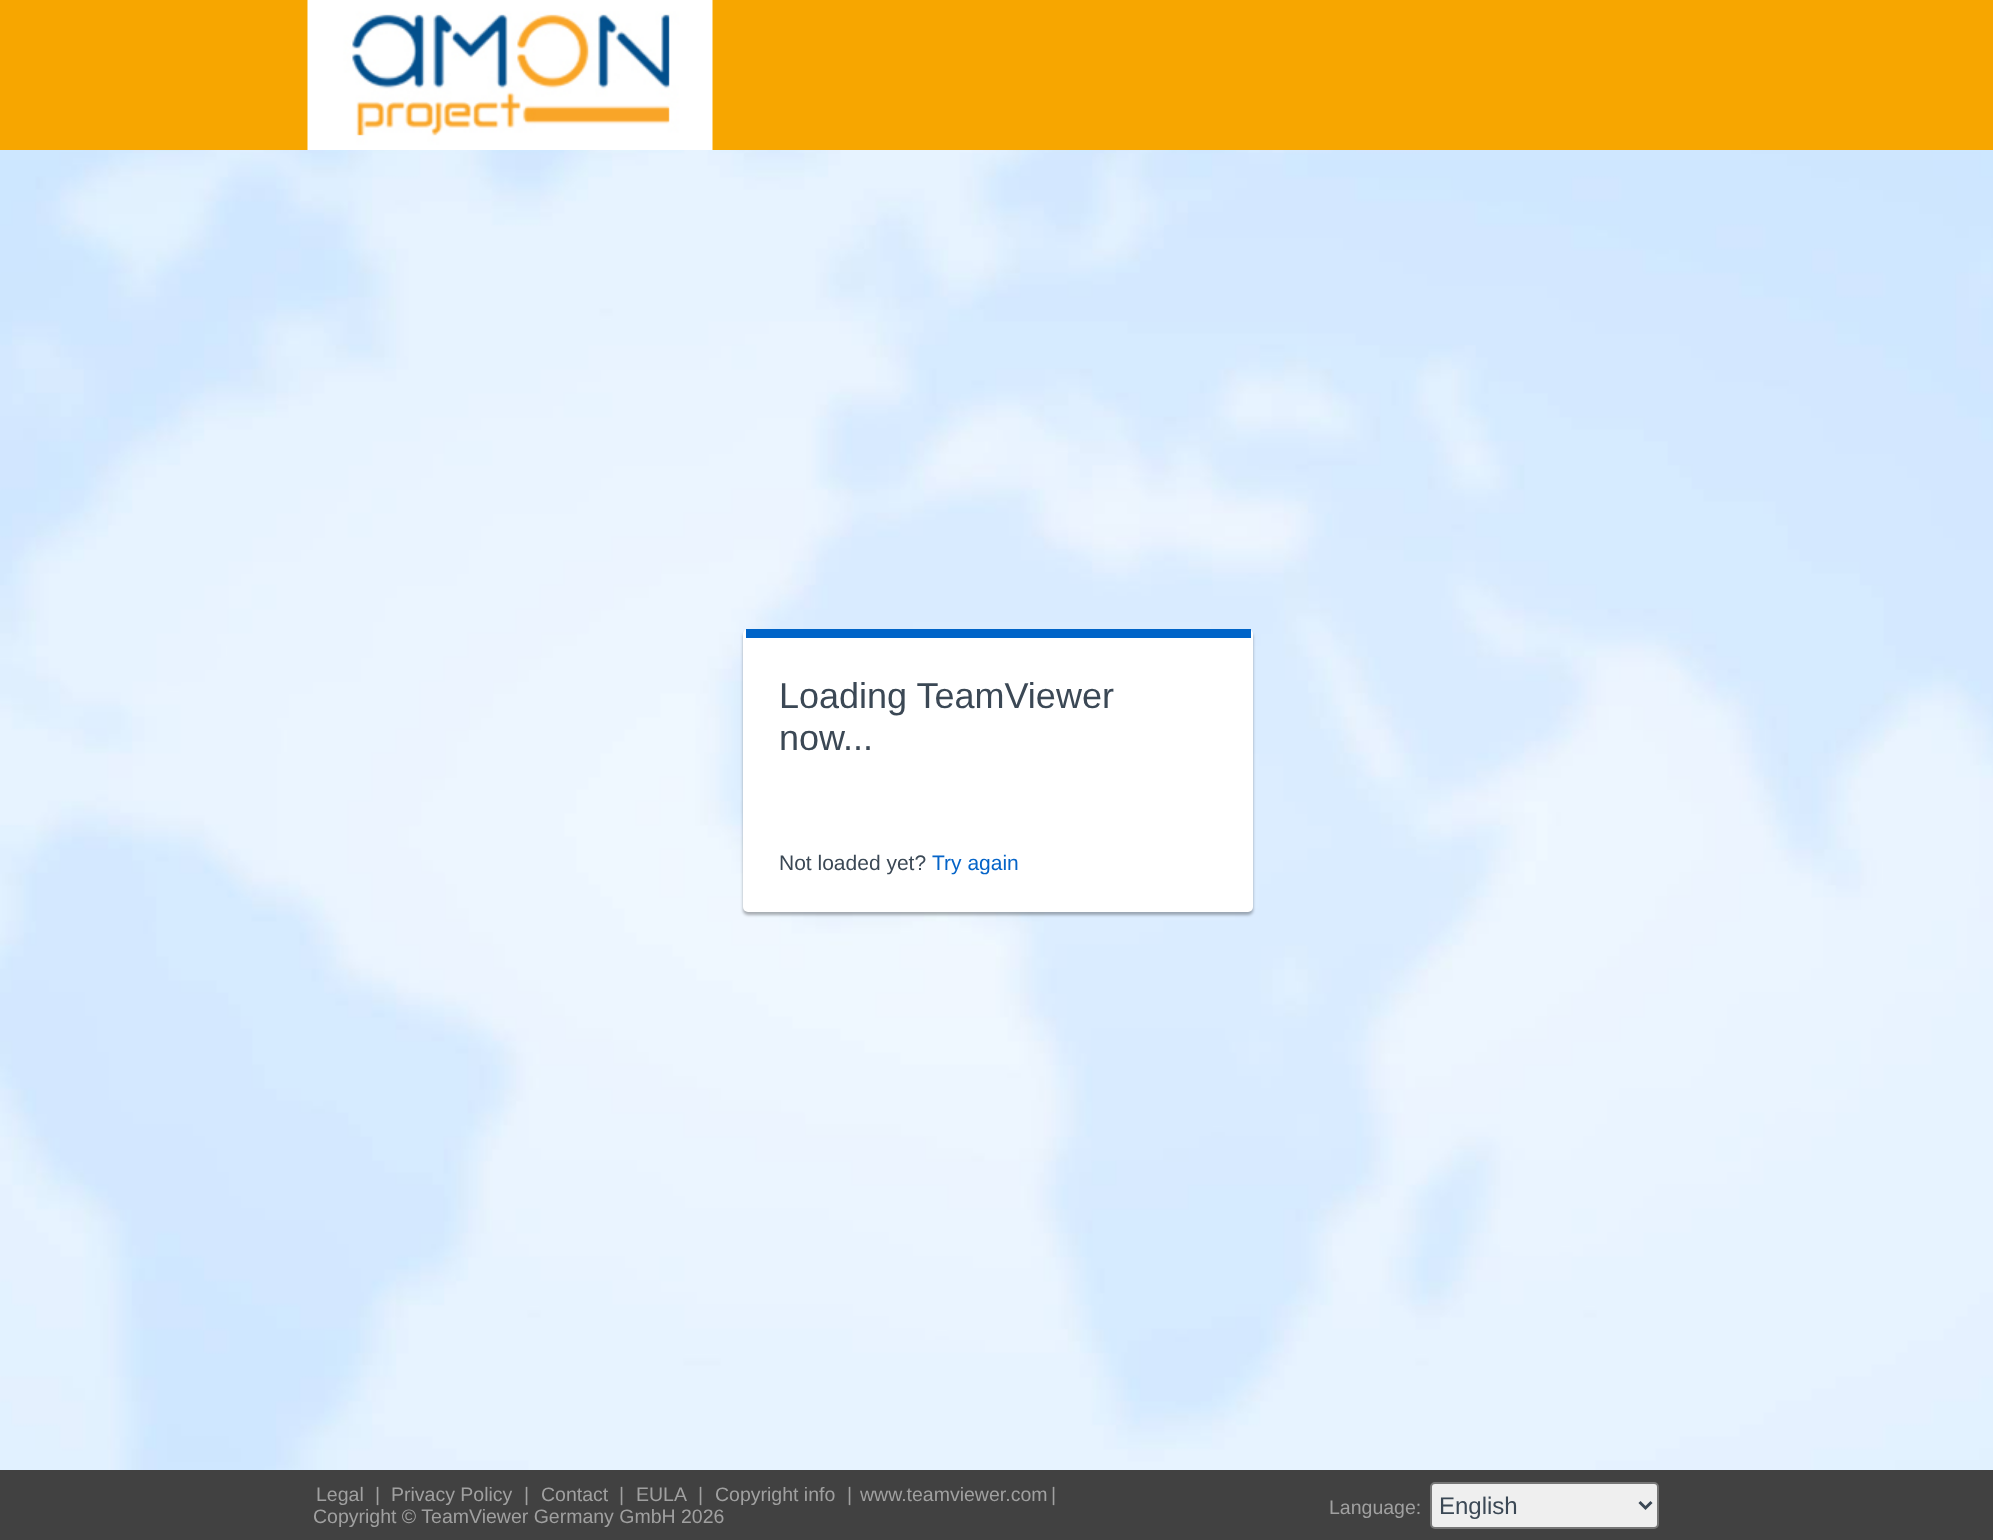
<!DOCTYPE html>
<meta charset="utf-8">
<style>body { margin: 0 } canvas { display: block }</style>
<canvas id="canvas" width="1993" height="1540"></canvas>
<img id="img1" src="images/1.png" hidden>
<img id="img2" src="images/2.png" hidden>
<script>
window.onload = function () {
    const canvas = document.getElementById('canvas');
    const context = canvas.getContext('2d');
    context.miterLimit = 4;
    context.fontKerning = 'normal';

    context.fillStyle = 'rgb(255, 255, 255)';
    context.fillRect(0, 0, 1993, 1540);
    context.fillStyle = 'rgb(247, 166, 0)';
    context.fillRect(0, 0, 1993, 150);
    context.drawImage(document.getElementById('img1'), 307, 0, 406, 150);
    context.drawImage(document.getElementById('img2'), 0, 150, 1993, 1320);
    context.fillStyle = 'rgba(0, 0, 0, 0.3)';
    context.filter = 'blur(1.5px)';
    context.beginPath();
    context.roundRect(743, 632, 510, 283, 5);
    context.fill();
    context.filter = 'none';
    context.fillStyle = 'rgb(255, 255, 255)';
    context.beginPath();
    context.roundRect(743, 629, 510, 283, 5);
    context.fill();
    context.fillStyle = 'rgb(0, 100, 200)';
    context.fillRect(746, 629, 505, 9);
    context.fillStyle = 'rgb(65, 65, 65)';
    context.fillRect(0, 1470, 1993, 70);
    context.fillStyle = 'rgb(239, 239, 239)';
    context.beginPath();
    context.roundRect(1431, 1483, 227, 45, 4);
    context.fill();
    context.strokeStyle = 'rgb(118, 118, 118)';
    context.lineWidth = 2;
    context.stroke();
    context.beginPath();
    context.moveTo(1639.5, 1502);
    context.lineTo(1645.5, 1508);
    context.lineTo(1651.5, 1502);
    context.strokeStyle = 'rgb(59, 72, 85)';
    context.lineWidth = 3;
    context.stroke();
    context.font = '36px Liberation Sans';
    context.fillStyle = 'rgb(59, 72, 85)';
    context.fillText('Loading TeamViewer', 779, 708);
    context.fillText('now...', 779, 750);
    context.font = '21px Liberation Sans';
    context.fillText('Not loaded yet?', 779, 870);
    context.fillStyle = 'rgb(5, 100, 200)';
    context.fillText('Try again', 932, 870);
    context.font = '19.5px Liberation Sans';
    context.fillStyle = 'rgb(160, 160, 160)';
    context.fillText('Legal', 316, 1501);
    context.fillText('|', 375, 1501);
    context.fillText('Privacy Policy', 391, 1501);
    context.fillText('|', 524, 1501);
    context.fillText('Contact', 541, 1501);
    context.fillText('|', 619, 1501);
    context.fillText('EULA', 636, 1501);
    context.fillText('|', 698, 1501);
    context.fillText('Copyright info', 715, 1501);
    context.fillText('|', 847, 1501);
    context.fillText('www.teamviewer.com', 860, 1501);
    context.fillText('|', 1051, 1501);
    context.fillText('Copyright © TeamViewer Germany GmbH 2026', 313, 1523);
    context.fillText('Language:', 1329, 1514);
    context.font = '24px Liberation Sans';
    context.fillStyle = 'rgb(59, 72, 85)';
    context.fillText('English', 1439, 1514);
};
</script>
